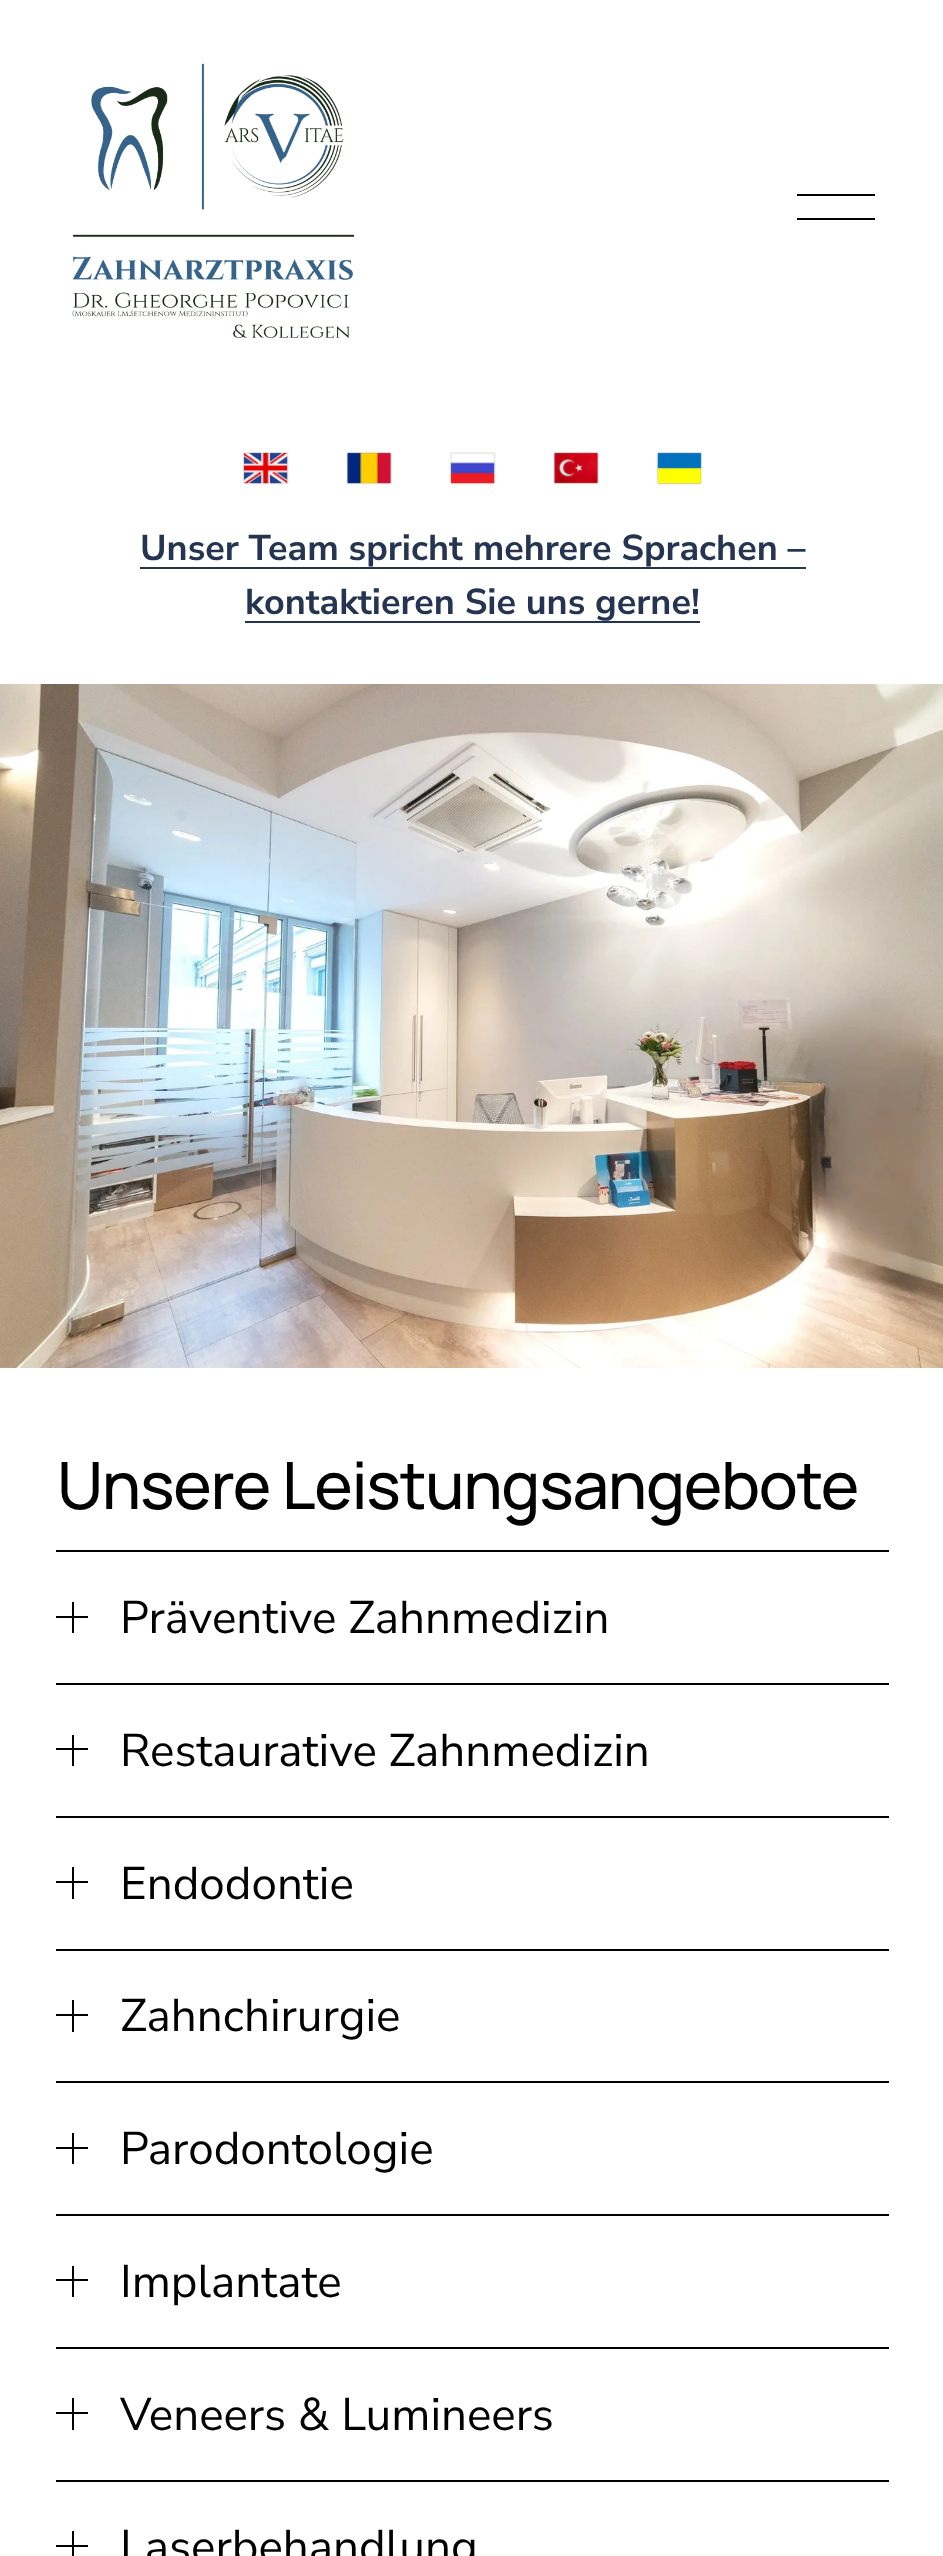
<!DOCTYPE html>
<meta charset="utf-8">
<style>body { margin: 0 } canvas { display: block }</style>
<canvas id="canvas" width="943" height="2556"></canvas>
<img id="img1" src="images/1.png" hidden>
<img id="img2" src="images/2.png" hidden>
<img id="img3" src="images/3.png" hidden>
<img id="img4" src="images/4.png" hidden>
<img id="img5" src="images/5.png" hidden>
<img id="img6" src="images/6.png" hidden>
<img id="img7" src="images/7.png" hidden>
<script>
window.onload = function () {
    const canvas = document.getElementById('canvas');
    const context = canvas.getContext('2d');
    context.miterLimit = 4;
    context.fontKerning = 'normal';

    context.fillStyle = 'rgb(255, 255, 255)';
    context.fillRect(0, 0, 943, 2556);
    context.drawImage(document.getElementById('img1'), 72, 63, 283, 275);
    context.fillStyle = 'rgb(0, 0, 0)';
    context.fillRect(797, 194, 78, 2);
    context.fillRect(797, 218, 78, 2);
    context.drawImage(document.getElementById('img2'), 243, 452, 46, 33);
    context.drawImage(document.getElementById('img3'), 346, 452, 46, 33);
    context.drawImage(document.getElementById('img4'), 450, 452, 46, 33);
    context.drawImage(document.getElementById('img5'), 553, 452, 46, 32);
    context.drawImage(document.getElementById('img6'), 656, 452, 46, 33);
    context.fillStyle = 'rgb(37, 53, 81)';
    context.fillRect(140, 567, 666, 2);
    context.fillRect(245, 621, 455, 2);
    context.drawImage(document.getElementById('img7'), 0, 684, 943, 684);
    context.fillStyle = 'rgb(0, 0, 0)';
    context.fillRect(56, 1550, 833, 2);
    context.fillRect(56, 1616, 32, 2);
    context.fillRect(72, 1602, 2, 31);
    context.fillRect(56, 1683, 833, 2);
    context.fillRect(56, 1748, 32, 2);
    context.fillRect(72, 1735, 2, 31);
    context.fillRect(56, 1816, 833, 2);
    context.fillRect(56, 1881, 32, 2);
    context.fillRect(72, 1867, 2, 32);
    context.fillRect(56, 1949, 833, 2);
    context.fillRect(56, 2014, 32, 2);
    context.fillRect(72, 2000, 2, 32);
    context.fillRect(56, 2081, 833, 2);
    context.fillRect(56, 2147, 32, 2);
    context.fillRect(72, 2133, 2, 31);
    context.fillRect(56, 2214, 833, 2);
    context.fillRect(56, 2279, 32, 2);
    context.fillRect(72, 2266, 2, 31);
    context.fillRect(56, 2347, 833, 2);
    context.fillRect(56, 2412, 32, 2);
    context.fillRect(72, 2398, 2, 32);
    context.fillRect(56, 2480, 833, 2);
    context.fillRect(56, 2545, 32, 2);
    context.fillRect(72, 2531, 2, 25);
    context.font = 'bold 36px Nunito Sans';
    context.fillStyle = 'rgb(37, 53, 81)';
    context.fillText('Unser Team spricht mehrere Sprachen –', 140, 560);
    context.fillText('kontaktieren Sie uns gerne!', 245, 614);
    context.letterSpacing = '-1.3px';
    context.font = '500 65.2px Manrope';
    context.fillStyle = 'rgb(0, 0, 0)';
    context.fillText('Unsere Leistungsangebote', 57, 1509);
    context.letterSpacing = '0px';
    context.font = '45.75px Nunito Sans';
    context.fillText('Präventive Zahnmedizin', 120, 1633);
    context.fillText('Restaurative Zahnmedizin', 120, 1766);
    context.fillText('Endodontie', 120, 1899);
    context.fillText('Zahnchirurgie', 120, 2031);
    context.fillText('Parodontologie', 120, 2164);
    context.fillText('Implantate', 120, 2297);
    context.fillText('Veneers & Lumineers', 120, 2430);
    context.fillText('Laserbehandlung', 120, 2562);
};
</script>
